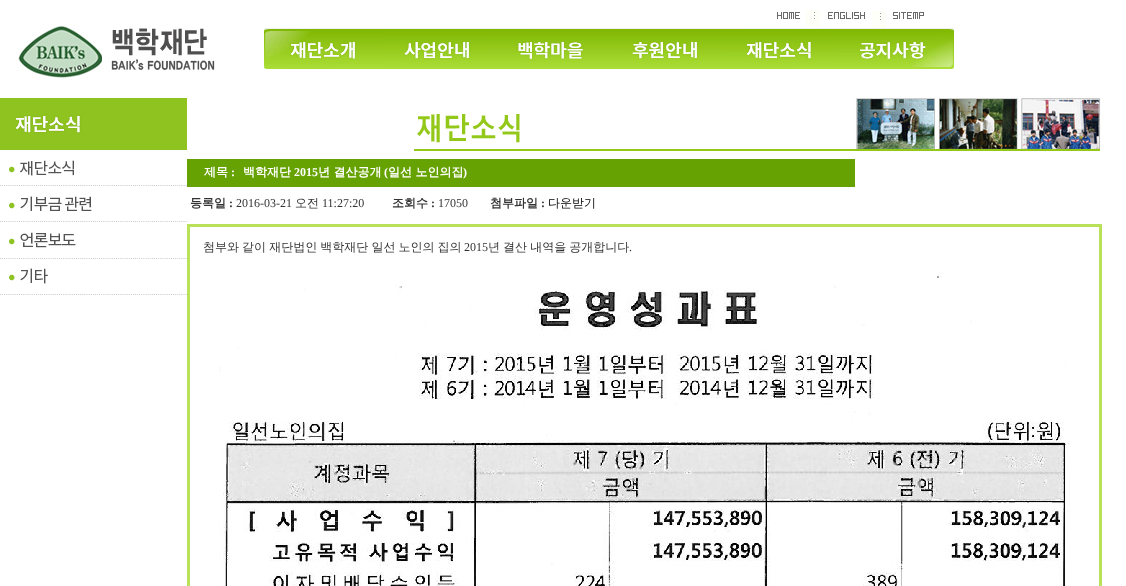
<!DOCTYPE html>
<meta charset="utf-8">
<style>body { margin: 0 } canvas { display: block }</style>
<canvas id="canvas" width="1126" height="586"></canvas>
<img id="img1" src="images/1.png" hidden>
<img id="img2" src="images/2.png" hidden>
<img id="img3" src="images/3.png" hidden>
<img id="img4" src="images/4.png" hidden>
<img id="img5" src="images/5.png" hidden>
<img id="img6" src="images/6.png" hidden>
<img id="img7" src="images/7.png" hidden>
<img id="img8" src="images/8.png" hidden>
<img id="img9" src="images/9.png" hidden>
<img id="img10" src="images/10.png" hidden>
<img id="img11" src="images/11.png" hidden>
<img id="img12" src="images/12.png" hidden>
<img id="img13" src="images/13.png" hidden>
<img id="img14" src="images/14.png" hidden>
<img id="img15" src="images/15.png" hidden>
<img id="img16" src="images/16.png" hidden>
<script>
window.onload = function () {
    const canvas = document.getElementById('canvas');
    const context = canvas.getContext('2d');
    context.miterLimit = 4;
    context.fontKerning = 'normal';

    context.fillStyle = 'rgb(255, 255, 255)';
    context.fillRect(0, 0, 1126, 586);
    context.drawImage(document.getElementById('img1'), 18, 26, 197, 52);
    context.drawImage(document.getElementById('img2'), 777, 10, 34, 17);
    context.drawImage(document.getElementById('img3'), 811, 10, 66, 18);
    context.drawImage(document.getElementById('img4'), 877, 8, 47, 20);
    context.drawImage(document.getElementById('img5'), 264, 28, 119, 41);
    context.drawImage(document.getElementById('img6'), 383, 28, 109, 41);
    context.drawImage(document.getElementById('img7'), 492, 28, 117, 41);
    context.drawImage(document.getElementById('img8'), 609, 28, 114, 41);
    context.drawImage(document.getElementById('img9'), 723, 28, 110, 41);
    context.drawImage(document.getElementById('img10'), 833, 28, 121, 41);
    context.drawImage(document.getElementById('img11'), 0, 98, 187, 78);
    context.drawImage(document.getElementById('img12'), 0, 185, 187, 26);
    context.drawImage(document.getElementById('img13'), 0, 221, 187, 27);
    context.drawImage(document.getElementById('img14'), 0, 258, 187, 37);
    context.drawImage(document.getElementById('img15'), 414, 98, 687, 54);
    context.fillStyle = 'rgb(102, 163, 2)';
    context.fillRect(187, 159, 668, 28);
    context.fillStyle = 'rgb(185, 226, 90)';
    context.fillRect(187, 224, 915, 362);
    context.fillStyle = 'rgb(255, 255, 255)';
    context.fillRect(190, 227, 909, 359);
    context.drawImage(document.getElementById('img16'), 219, 273, 851, 313);
    context.font = 'bold 12px WenQuanYi Zen Hei';
    context.fillText('제목', 204, 176);
    context.font = 'bold 12px Liberation Serif';
    context.fillText(':', 231, 176);
    context.font = 'bold 12px WenQuanYi Zen Hei';
    context.fillText('백학재단', 243, 176);
    context.font = 'bold 12px Liberation Serif';
    context.fillText('2015', 294, 176);
    context.font = 'bold 12px WenQuanYi Zen Hei';
    context.fillText('년 결산공개', 318, 176);
    context.font = 'bold 12px Liberation Serif';
    context.fillText('(', 384, 176);
    context.font = 'bold 12px WenQuanYi Zen Hei';
    context.fillText('일선 노인의집', 388, 176);
    context.font = 'bold 12px Liberation Serif';
    context.fillText(')', 463, 176);
    context.font = 'bold 12px WenQuanYi Zen Hei';
    context.fillStyle = 'rgb(51, 51, 51)';
    context.fillText('등록일', 190, 207);
    context.font = 'bold 12px Liberation Serif';
    context.fillText(':', 229, 207);
    context.font = '12px Liberation Serif';
    context.fillText('2016-03-21', 236, 207);
    context.font = '500 12px WenQuanYi Zen Hei';
    context.fillText('오전', 295, 207);
    context.font = '12px Liberation Serif';
    context.fillText('11:27:20', 322, 207);
    context.font = 'bold 12px WenQuanYi Zen Hei';
    context.fillText('조회수', 392, 207);
    context.font = 'bold 12px Liberation Serif';
    context.fillText(':', 431, 207);
    context.font = '12px Liberation Serif';
    context.fillText('17050', 438, 207);
    context.font = 'bold 12px WenQuanYi Zen Hei';
    context.fillText('첨부파일', 490, 207);
    context.font = 'bold 12px Liberation Serif';
    context.fillText(':', 541, 207);
    context.font = '500 12px WenQuanYi Zen Hei';
    context.fillStyle = 'rgb(0, 0, 0)';
    context.fillText('다운받기', 548, 207);
    context.wordSpacing = '-0.5px';
    context.fillStyle = 'rgb(51, 51, 51)';
    context.fillText('첨부와 같이 재단법인 백학재단 일선 노인의 집의', 203, 251);
    context.wordSpacing = '0px';
    context.font = '12px Liberation Serif';
    context.fillText('2015', 464, 251);
    context.wordSpacing = '-0.5px';
    context.font = '500 12px WenQuanYi Zen Hei';
    context.fillText('년 결산 내역을 공개합니다', 488, 251);
    context.wordSpacing = '0px';
    context.font = '12px Liberation Serif';
    context.fillText('.', 629, 251);
};
</script>
